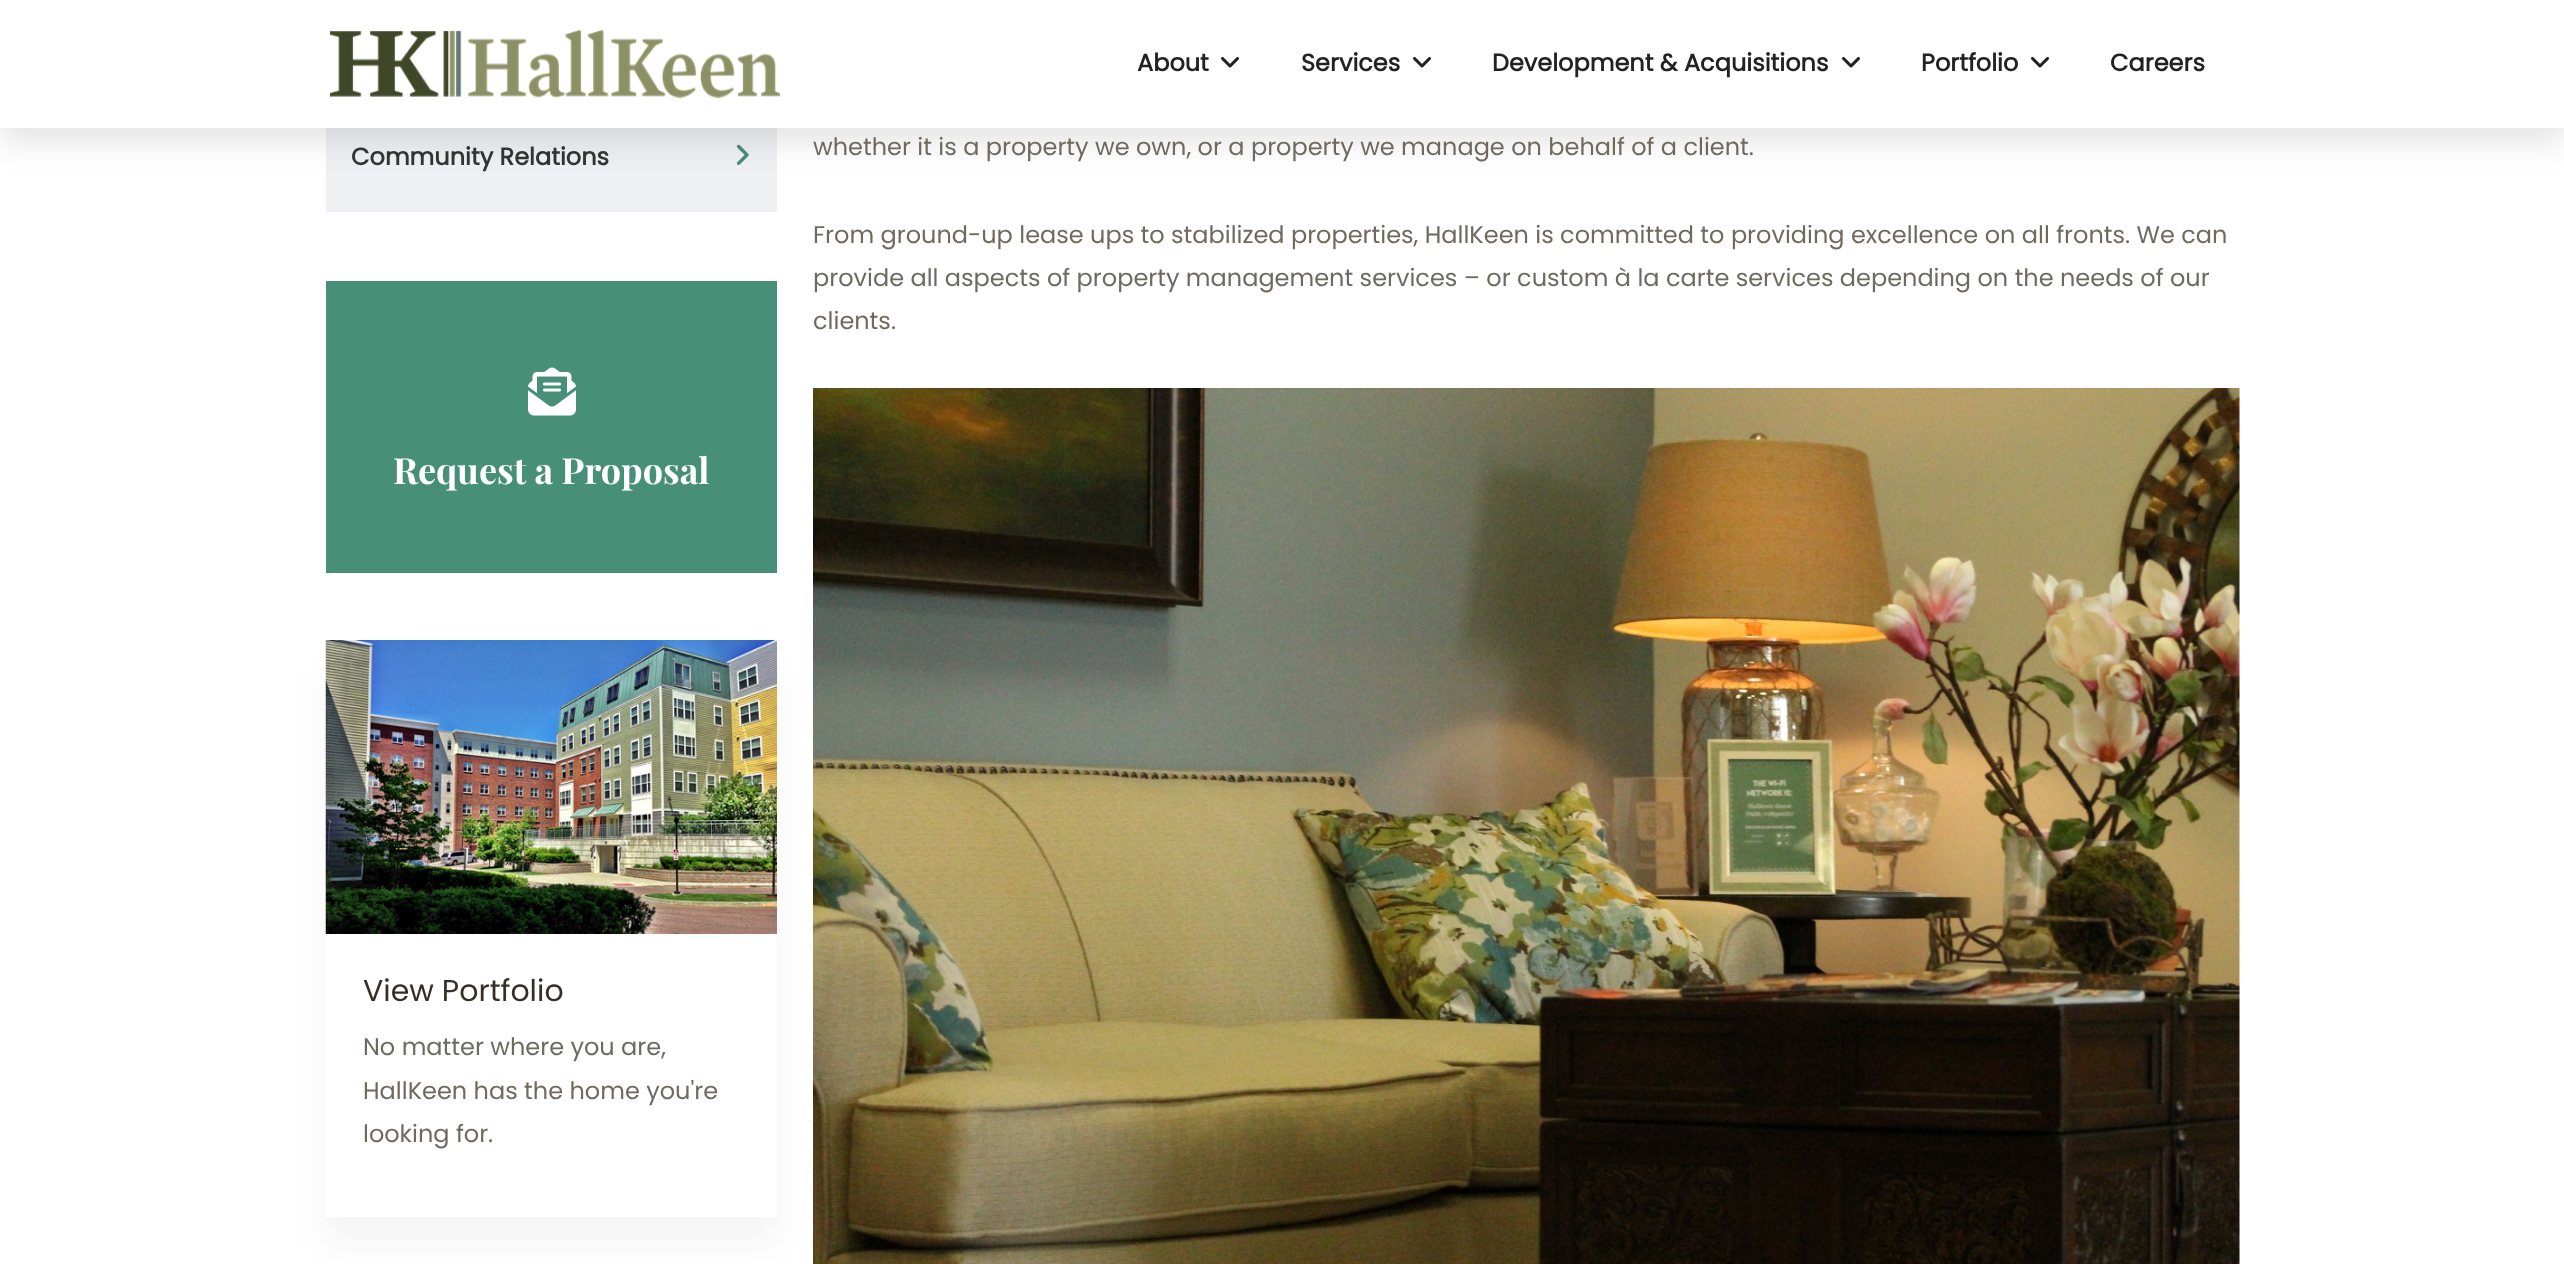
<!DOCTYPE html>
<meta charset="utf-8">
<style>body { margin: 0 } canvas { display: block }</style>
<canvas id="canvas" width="2564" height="1264"></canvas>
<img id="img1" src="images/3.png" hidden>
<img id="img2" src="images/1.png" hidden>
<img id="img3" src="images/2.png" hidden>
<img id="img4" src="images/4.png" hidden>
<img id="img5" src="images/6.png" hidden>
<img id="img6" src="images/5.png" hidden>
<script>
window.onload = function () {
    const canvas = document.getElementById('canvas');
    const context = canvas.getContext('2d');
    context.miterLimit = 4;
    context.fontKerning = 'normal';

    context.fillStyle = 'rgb(255, 255, 255)';
    context.fillRect(0, 0, 2564, 1264);
    context.fillStyle = 'rgb(238, 240, 243)';
    context.fillRect(328, 128, 449, 84);
    context.fillRect(326, 128, 2, 85);
    context.drawImage(document.getElementById('img1'), 736, 144, 13, 21);
    context.fillStyle = 'rgba(0, 0, 0, 0.1)';
    context.filter = 'blur(15px)';
    context.beginPath();
    context.rect(0, 15, 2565, 128);
    context.fill();
    context.filter = 'none';
    context.fillStyle = 'rgb(255, 255, 255)';
    context.fillRect(0, 0, 2564, 128);
    context.drawImage(document.getElementById('img2'), 330, 30, 450, 68);
    context.drawImage(document.getElementById('img3'), 1221, 57, 18, 11);
    context.drawImage(document.getElementById('img3'), 1413, 57, 18, 11);
    context.drawImage(document.getElementById('img3'), 1842, 57, 18, 11);
    context.drawImage(document.getElementById('img3'), 2031, 57, 18, 11);
    context.fillStyle = 'rgb(72, 143, 119)';
    context.fillRect(326, 281, 451, 292);
    context.drawImage(document.getElementById('img4'), 528, 367, 48, 49);
    context.drawImage(document.getElementById('img5'), 813, 388, 1427, 876);
    context.fillStyle = 'rgba(0, 0, 0, 0.04)';
    context.filter = 'blur(15px)';
    context.beginPath();
    context.rect(326, 671, 451, 576);
    context.fill();
    context.filter = 'none';
    context.fillStyle = 'rgb(255, 255, 255)';
    context.fillRect(326, 934, 451, 283);
    context.drawImage(document.getElementById('img6'), 325, 640, 452, 294);
    context.font = 'bold 24px Poppins';
    context.fillStyle = 'rgb(34, 34, 34)';
    context.fillText('About', 1137, 71);
    context.fillText('Services', 1301, 71);
    context.fillText('Development & Acquisitions', 1492, 71);
    context.fillText('Portfolio', 1921, 71);
    context.fillText('Careers', 2110, 71);
    context.fillStyle = 'rgb(51, 51, 51)';
    context.fillText('Community Relations', 351, 165);
    context.font = 'bold 36px Playfair Display';
    context.fillStyle = 'rgb(255, 255, 255)';
    context.fillText('Request a Proposal', 393, 484);
    context.font = '30px Poppins';
    context.fillStyle = 'rgb(53, 47, 39)';
    context.fillText('View Portfolio', 363, 1001);
    context.font = '24px Poppins';
    context.fillStyle = 'rgb(112, 105, 95)';
    context.fillText('No matter where you are,', 363, 1055);
    context.fillText('HallKeen has the home you\'re', 363, 1099);
    context.fillText('looking for.', 363, 1142);
    context.fillText('whether it is a property we own, or a property we manage on behalf of a client.', 813, 155);
    context.fillText('From ground-up lease ups to stabilized properties, HallKeen is committed to providing excellence on all fronts. We can', 813, 243);
    context.fillText('provide all aspects of property management services – or custom à la carte services depending on the needs of our', 813, 286);
    context.fillText('clients.', 813, 329);
};
</script>
